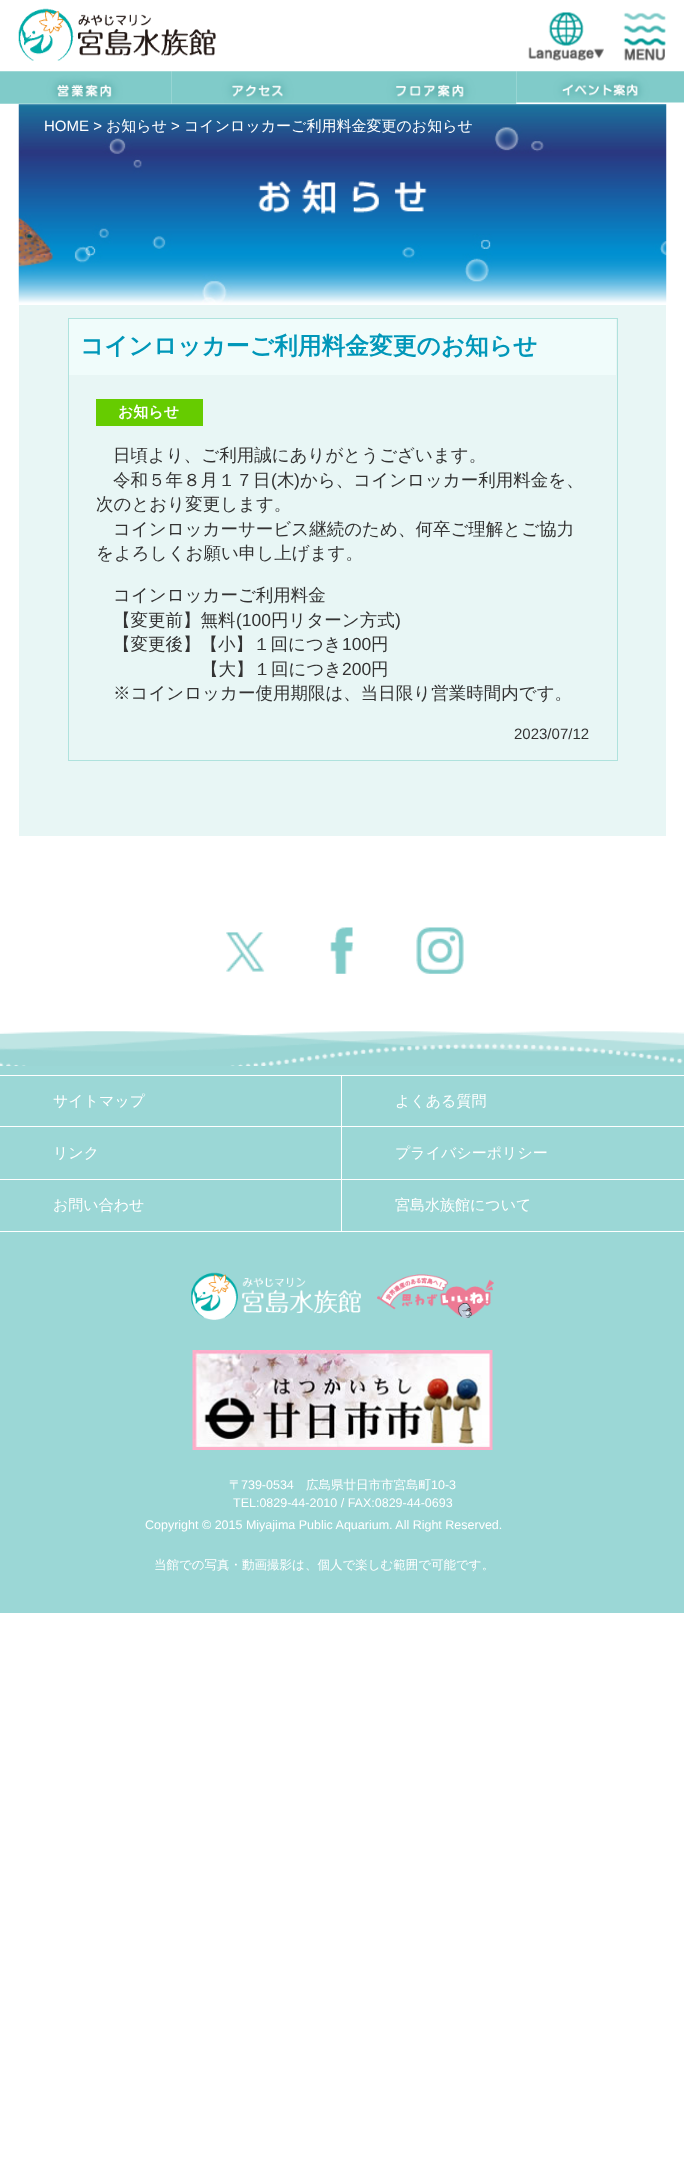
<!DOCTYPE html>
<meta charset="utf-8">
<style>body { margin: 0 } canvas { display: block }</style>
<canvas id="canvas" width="684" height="2166"></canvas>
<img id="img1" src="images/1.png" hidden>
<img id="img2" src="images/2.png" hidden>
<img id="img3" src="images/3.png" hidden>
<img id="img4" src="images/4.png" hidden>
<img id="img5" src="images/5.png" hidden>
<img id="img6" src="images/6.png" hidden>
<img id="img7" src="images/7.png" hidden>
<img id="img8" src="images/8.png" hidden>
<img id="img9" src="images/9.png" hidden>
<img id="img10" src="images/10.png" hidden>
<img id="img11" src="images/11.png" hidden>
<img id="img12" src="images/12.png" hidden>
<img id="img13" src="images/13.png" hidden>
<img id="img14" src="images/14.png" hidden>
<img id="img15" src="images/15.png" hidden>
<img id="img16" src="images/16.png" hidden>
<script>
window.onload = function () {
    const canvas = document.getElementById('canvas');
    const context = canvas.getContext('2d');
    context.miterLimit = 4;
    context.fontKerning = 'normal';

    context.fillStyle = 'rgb(255, 255, 255)';
    context.fillRect(0, 0, 684, 2166);
    context.drawImage(document.getElementById('img1'), 18, 8, 198, 53);
    context.drawImage(document.getElementById('img2'), 528, 12, 76, 49);
    context.drawImage(document.getElementById('img3'), 623, 12, 43, 49);
    context.drawImage(document.getElementById('img4'), 0, 71, 172, 33);
    context.drawImage(document.getElementById('img5'), 171, 71, 174, 33);
    context.drawImage(document.getElementById('img6'), 345, 71, 172, 33);
    context.drawImage(document.getElementById('img7'), 516, 71, 168, 32);
    context.fillStyle = 'rgb(232, 246, 245)';
    context.fillRect(19, 305, 647, 531);
    context.drawImage(document.getElementById('img8'), 18, 104, 649, 201);
    context.drawImage(document.getElementById('img9'), 258, 180, 169, 34);
    context.strokeStyle = 'rgb(175, 226, 221)';
    context.strokeRect(68.5, 318.5, 549, 442);
    context.fillStyle = 'rgb(240, 252, 251)';
    context.fillRect(69, 319, 547, 56);
    context.fillStyle = 'rgb(102, 204, 0)';
    context.fillRect(96, 399, 107, 27);
    context.drawImage(document.getElementById('img10'), 0, 1031, 684, 35);
    context.drawImage(document.getElementById('img11'), 0, 1043, 683, 23);
    context.fillStyle = 'rgb(155, 215, 214)';
    context.fillRect(0, 1066, 684, 547);
    context.drawImage(document.getElementById('img12'), 226, 932, 39, 40);
    context.drawImage(document.getElementById('img13'), 330, 927, 24, 47);
    context.drawImage(document.getElementById('img14'), 416, 927, 48, 47);
    context.fillStyle = 'rgb(255, 255, 255)';
    context.fillRect(0, 1231, 684, 1);
    context.fillRect(0, 1075, 684, 1);
    context.fillRect(341, 1075, 1, 51);
    context.fillRect(0, 1126, 684, 1);
    context.fillRect(341, 1126, 1, 53);
    context.fillRect(0, 1179, 684, 1);
    context.fillRect(341, 1179, 1, 52);
    context.drawImage(document.getElementById('img15'), 191, 1272, 303, 48);
    context.drawImage(document.getElementById('img16'), 192, 1350, 301, 100);
    context.font = '15px Liberation Sans';
    context.fillText('HOME >', 44, 131);
    context.font = '500 15px WenQuanYi Zen Hei';
    context.fillText('お知らせ', 106, 131);
    context.font = '15px Liberation Sans';
    context.fillText('>', 171, 131);
    context.font = '500 15px WenQuanYi Zen Hei';
    context.fillText('コインロッカーご利用料金変更のお知らせ', 184, 131);
    context.font = 'bold 23.75px WenQuanYi Zen Hei';
    context.fillStyle = 'rgb(0, 151, 185)';
    context.fillText('コインロッカーご利用料金変更のお知らせ', 80, 354);
    context.font = 'bold 15px WenQuanYi Zen Hei';
    context.fillStyle = 'rgb(255, 255, 255)';
    context.fillText('お知らせ', 118, 417);
    context.font = '500 17.5px WenQuanYi Zen Hei';
    context.fillStyle = 'rgb(51, 51, 51)';
    context.fillText('日頃より、ご利用誠にありがとうございます。', 113, 461);
    context.fillText('令和５年８月１７日', 113, 486);
    context.font = '17.5px Liberation Sans';
    context.fillText('(', 271, 486);
    context.font = '500 17.5px WenQuanYi Zen Hei';
    context.fillText('木', 277, 486);
    context.font = '17.5px Liberation Sans';
    context.fillText(')', 294, 486);
    context.font = '500 17.5px WenQuanYi Zen Hei';
    context.fillText('から、コインロッカー利用料金を、', 300, 486);
    context.fillText('次のとおり変更します。', 96, 510);
    context.fillText('コインロッカーサービス継続のため、何卒ご理解とご協力', 113, 535);
    context.fillText('をよろしくお願い申し上げます。', 96, 559);
    context.fillText('コインロッカーご利用料金', 113, 601);
    context.fillText('【変更前】無料', 113, 626);
    context.font = '17.5px Liberation Sans';
    context.fillText('(100', 236, 626);
    context.font = '500 17.5px WenQuanYi Zen Hei';
    context.fillText('円リターン方式', 271, 626);
    context.font = '17.5px Liberation Sans';
    context.fillText(')', 395, 626);
    context.font = '500 17.5px WenQuanYi Zen Hei';
    context.fillText('【変更後】【小】１回につき', 113, 650);
    context.font = '17.5px Liberation Sans';
    context.fillText('100', 342, 650);
    context.font = '500 17.5px WenQuanYi Zen Hei';
    context.fillText('円', 371, 650);
    context.fillText('【大】１回につき', 201, 675);
    context.font = '17.5px Liberation Sans';
    context.fillText('200', 342, 675);
    context.font = '500 17.5px WenQuanYi Zen Hei';
    context.fillText('円', 371, 675);
    context.fillText('※コインロッカー使用期限は、当日限り営業時間内です。', 113, 699);
    context.font = '15px Liberation Sans';
    context.fillText('2023/07/12', 514, 739);
    context.font = '500 15px WenQuanYi Zen Hei';
    context.fillStyle = 'rgb(255, 255, 255)';
    context.fillText('サイトマップ', 53, 1106);
    context.fillText('よくある質問', 395, 1106);
    context.fillText('リンク', 53, 1158);
    context.fillText('プライバシーポリシー', 395, 1158);
    context.fillText('お問い合わせ', 53, 1210);
    context.fillText('宮島水族館について', 395, 1210);
    context.font = '500 12.5px WenQuanYi Zen Hei';
    context.fillText('〒', 229, 1489);
    context.font = '12.5px Liberation Sans';
    context.fillText('739-0534', 241, 1489);
    context.font = '500 12.5px WenQuanYi Zen Hei';
    context.fillText('広島県廿日市市宮島町', 306, 1489);
    context.font = '12.5px Liberation Sans';
    context.fillText('10-3', 431, 1489);
    context.fillText('TEL:0829-44-2010 / FAX:0829-44-0693', 233, 1507);
    context.fillText('Copyright © 2015 Miyajima Public Aquarium. All Right Reserved.', 145, 1529);
    context.font = '500 12.5px WenQuanYi Zen Hei';
    context.fillText('当館での写真・動画撮影は、個人で楽しむ範囲で可能です。', 154, 1569);
};
</script>
